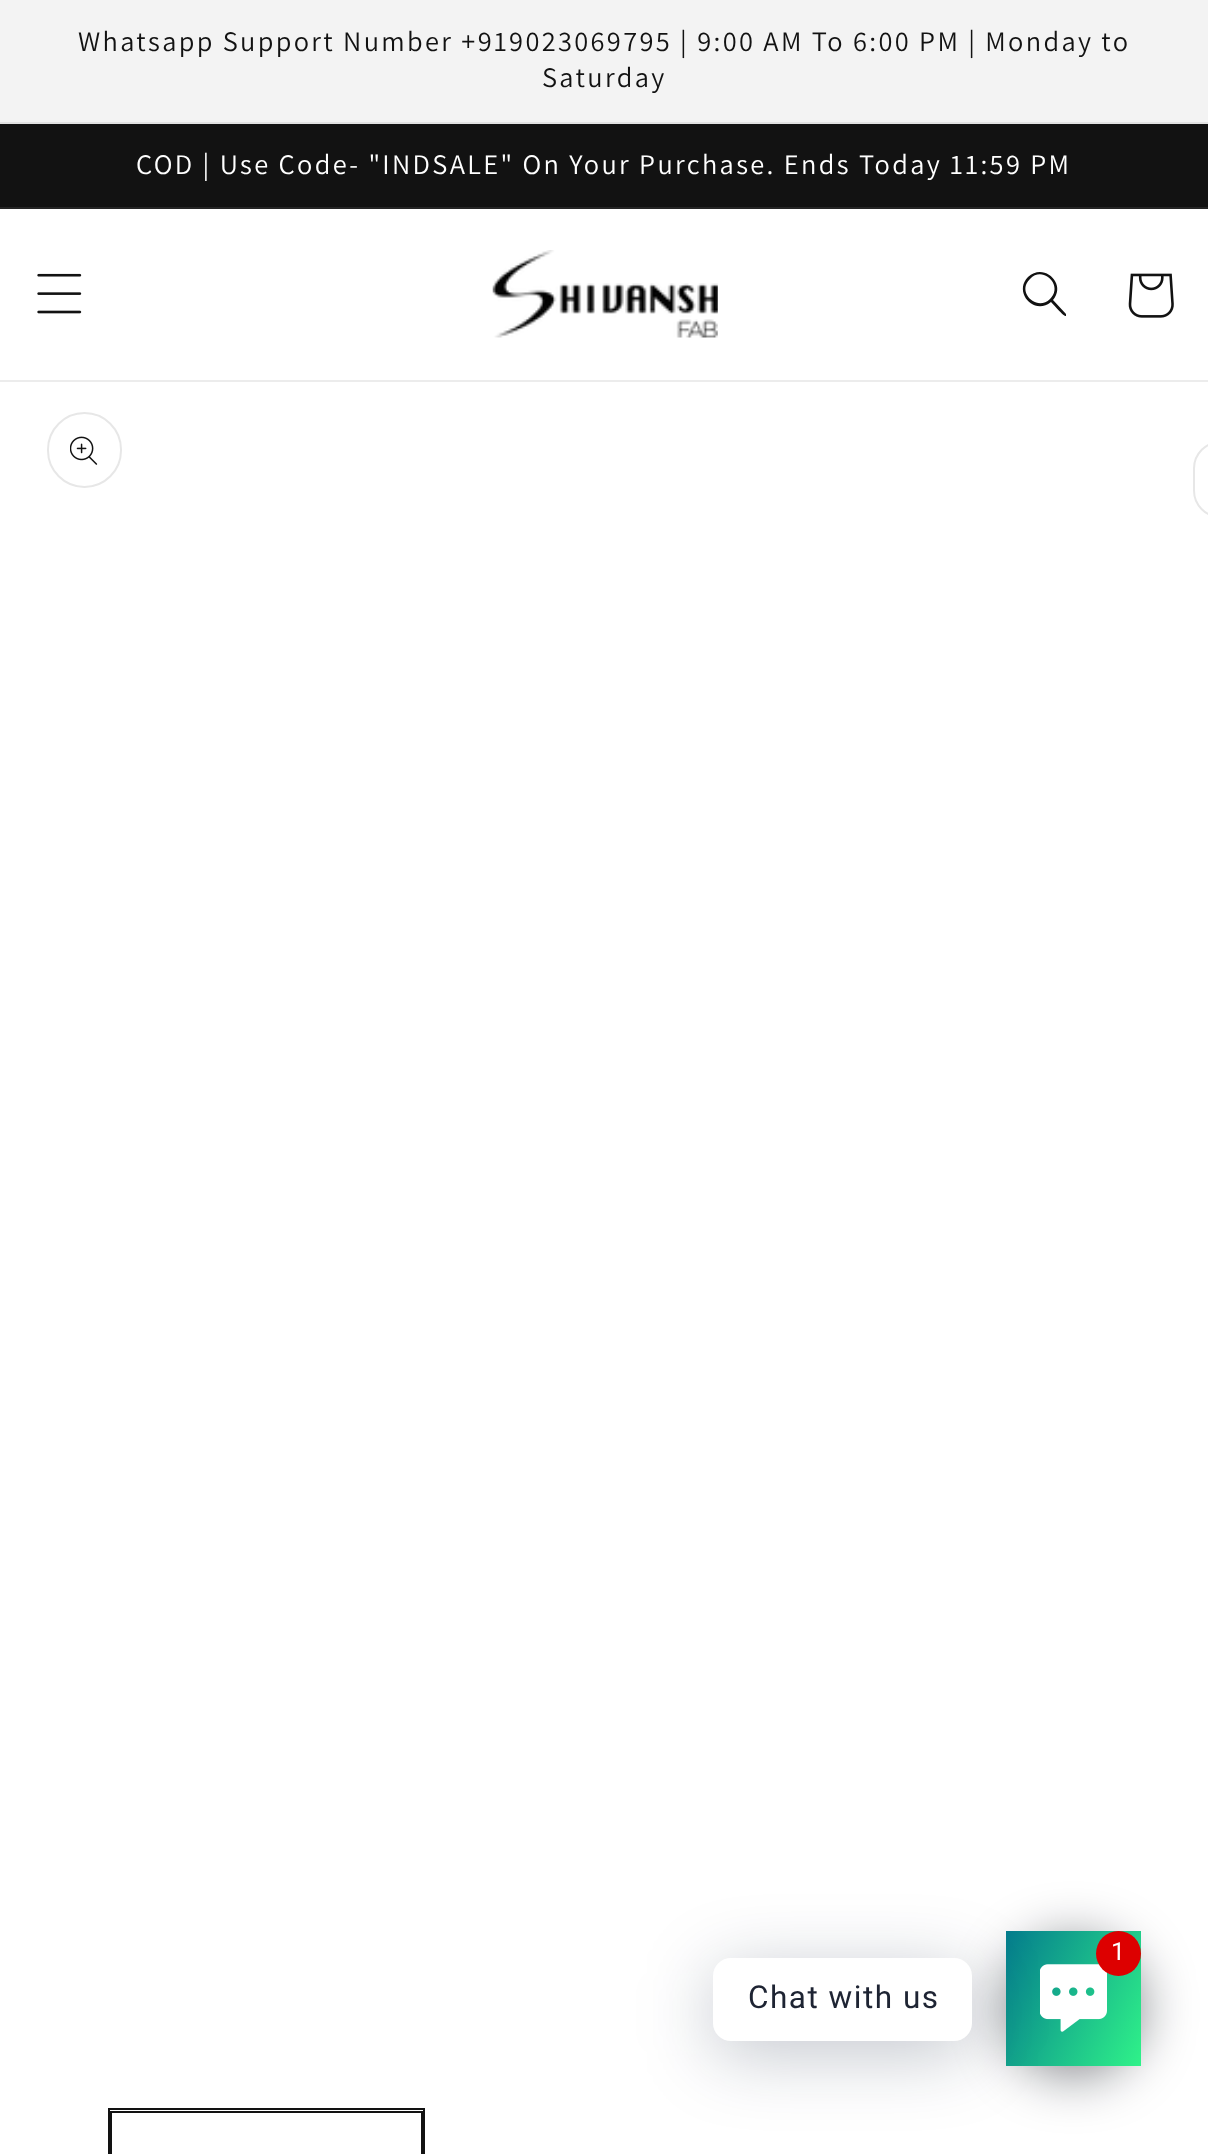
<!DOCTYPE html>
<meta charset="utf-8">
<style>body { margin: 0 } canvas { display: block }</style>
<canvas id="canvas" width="1208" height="2154"></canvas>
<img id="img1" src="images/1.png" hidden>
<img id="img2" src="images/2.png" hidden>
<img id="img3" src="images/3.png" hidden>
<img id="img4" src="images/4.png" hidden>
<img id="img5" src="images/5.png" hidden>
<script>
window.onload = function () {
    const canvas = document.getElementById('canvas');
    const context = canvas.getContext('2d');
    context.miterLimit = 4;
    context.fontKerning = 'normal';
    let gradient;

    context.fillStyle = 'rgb(255, 255, 255)';
    context.fillRect(0, 0, 1208, 2154);
    context.fillStyle = 'rgb(243, 243, 243)';
    context.fillRect(0, 0, 1208, 122);
    context.fillStyle = 'rgb(225, 225, 225)';
    context.fillRect(0, 122, 1208, 2);
    context.fillStyle = 'rgb(18, 18, 18)';
    context.fillRect(0, 124, 1208, 83);
    context.fillStyle = 'rgb(37, 37, 37)';
    context.fillRect(0, 207, 1208, 2);
    context.fillStyle = 'rgb(236, 236, 236)';
    context.fillRect(0, 380, 1208, 2);
    context.drawImage(document.getElementById('img1'), 37, 273, 45, 41);
    context.drawImage(document.getElementById('img2'), 492, 250, 226, 88);
    context.fillStyle = 'rgb(18, 18, 18)';
    context.beginPath();
    context.moveTo(1050, 299);
    context.bezierCurveTo(1037, 312, 1016, 292, 1030, 279);
    context.bezierCurveTo(1043, 265, 1064, 286, 1050, 299);
    context.closePath();
    context.moveTo(1051, 302);
    context.bezierCurveTo(1034, 316, 1013, 292, 1028, 277);
    context.bezierCurveTo(1044, 262, 1067, 284, 1053, 300);
    context.lineTo(1066, 314);
    context.lineTo(1066, 316);
    context.bezierCurveTo(1064, 317, 1053, 304, 1051, 302);
    context.closePath();
    context.fill('evenodd');
    context.drawImage(document.getElementById('img3'), 1128, 273, 46, 45);
    context.beginPath();
    context.roundRect(48, 413, 73, 74, 36.5);
    context.strokeStyle = 'rgb(231, 231, 231)';
    context.lineWidth = 2;
    context.stroke();
    context.drawImage(document.getElementById('img4'), 70, 436, 28, 29);
    context.beginPath();
    context.roundRect(1194, 442, 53, 75, 37);
    context.stroke();
    context.strokeStyle = 'rgb(18, 18, 18)';
    context.strokeRect(109, 2109, 315, 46);
    context.strokeRect(111, 2112, 311, 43);
    context.fillStyle = 'rgba(2, 6, 16, 0.5)';
    context.filter = 'blur(27px)';
    context.beginPath();
    context.roundRect(1006, 1940, 135, 135, 67.5);
    context.fill();
    context.filter = 'none';
    gradient = context.createLinearGradient(992, 1960, 1155, 2036);
    gradient.addColorStop(0, 'rgb(4, 124, 141)');
    gradient.addColorStop(1, 'rgb(47, 242, 137)');
    context.fillStyle = gradient;
    context.fillRect(1006, 1931, 135, 135);
    context.fillStyle = 'rgba(0, 18, 46, 0.24)';
    context.filter = 'blur(36px)';
    context.beginPath();
    context.roundRect(713, 1971, 259, 83, 18);
    context.fill();
    context.filter = 'none';
    context.drawImage(document.getElementById('img5'), 1040, 1964, 67, 68);
    context.fillStyle = 'rgb(221, 0, 0)';
    context.beginPath();
    context.arc(1118.5, 1953.5, 22.5, 0, 2 * Math.PI);
    context.fill();
    context.fillStyle = 'rgb(255, 255, 255)';
    context.beginPath();
    context.roundRect(713, 1958, 259, 83, 18);
    context.fill();
    context.letterSpacing = '2.35px';
    context.font = '28.35px Assistant';
    context.fillStyle = 'rgb(18, 18, 18)';
    context.fillText('Whatsapp Support Number +919023069795 | 9:00 AM To 6:00 PM | Monday to', 78, 51);
    context.fillText('Saturday', 542, 87);
    context.fillStyle = 'rgb(255, 255, 255)';
    context.fillText('COD | Use Code- "INDSALE" On Your Purchase. Ends Today 11:59 PM', 136, 174);
    context.letterSpacing = '1.5px';
    context.font = '25px Roboto';
    context.fillText('1', 1111, 1960);
    context.font = '31.5px Roboto';
    context.fillStyle = 'rgb(30, 36, 51)';
    context.fillText('Chat with us', 748, 2008);
};
</script>
